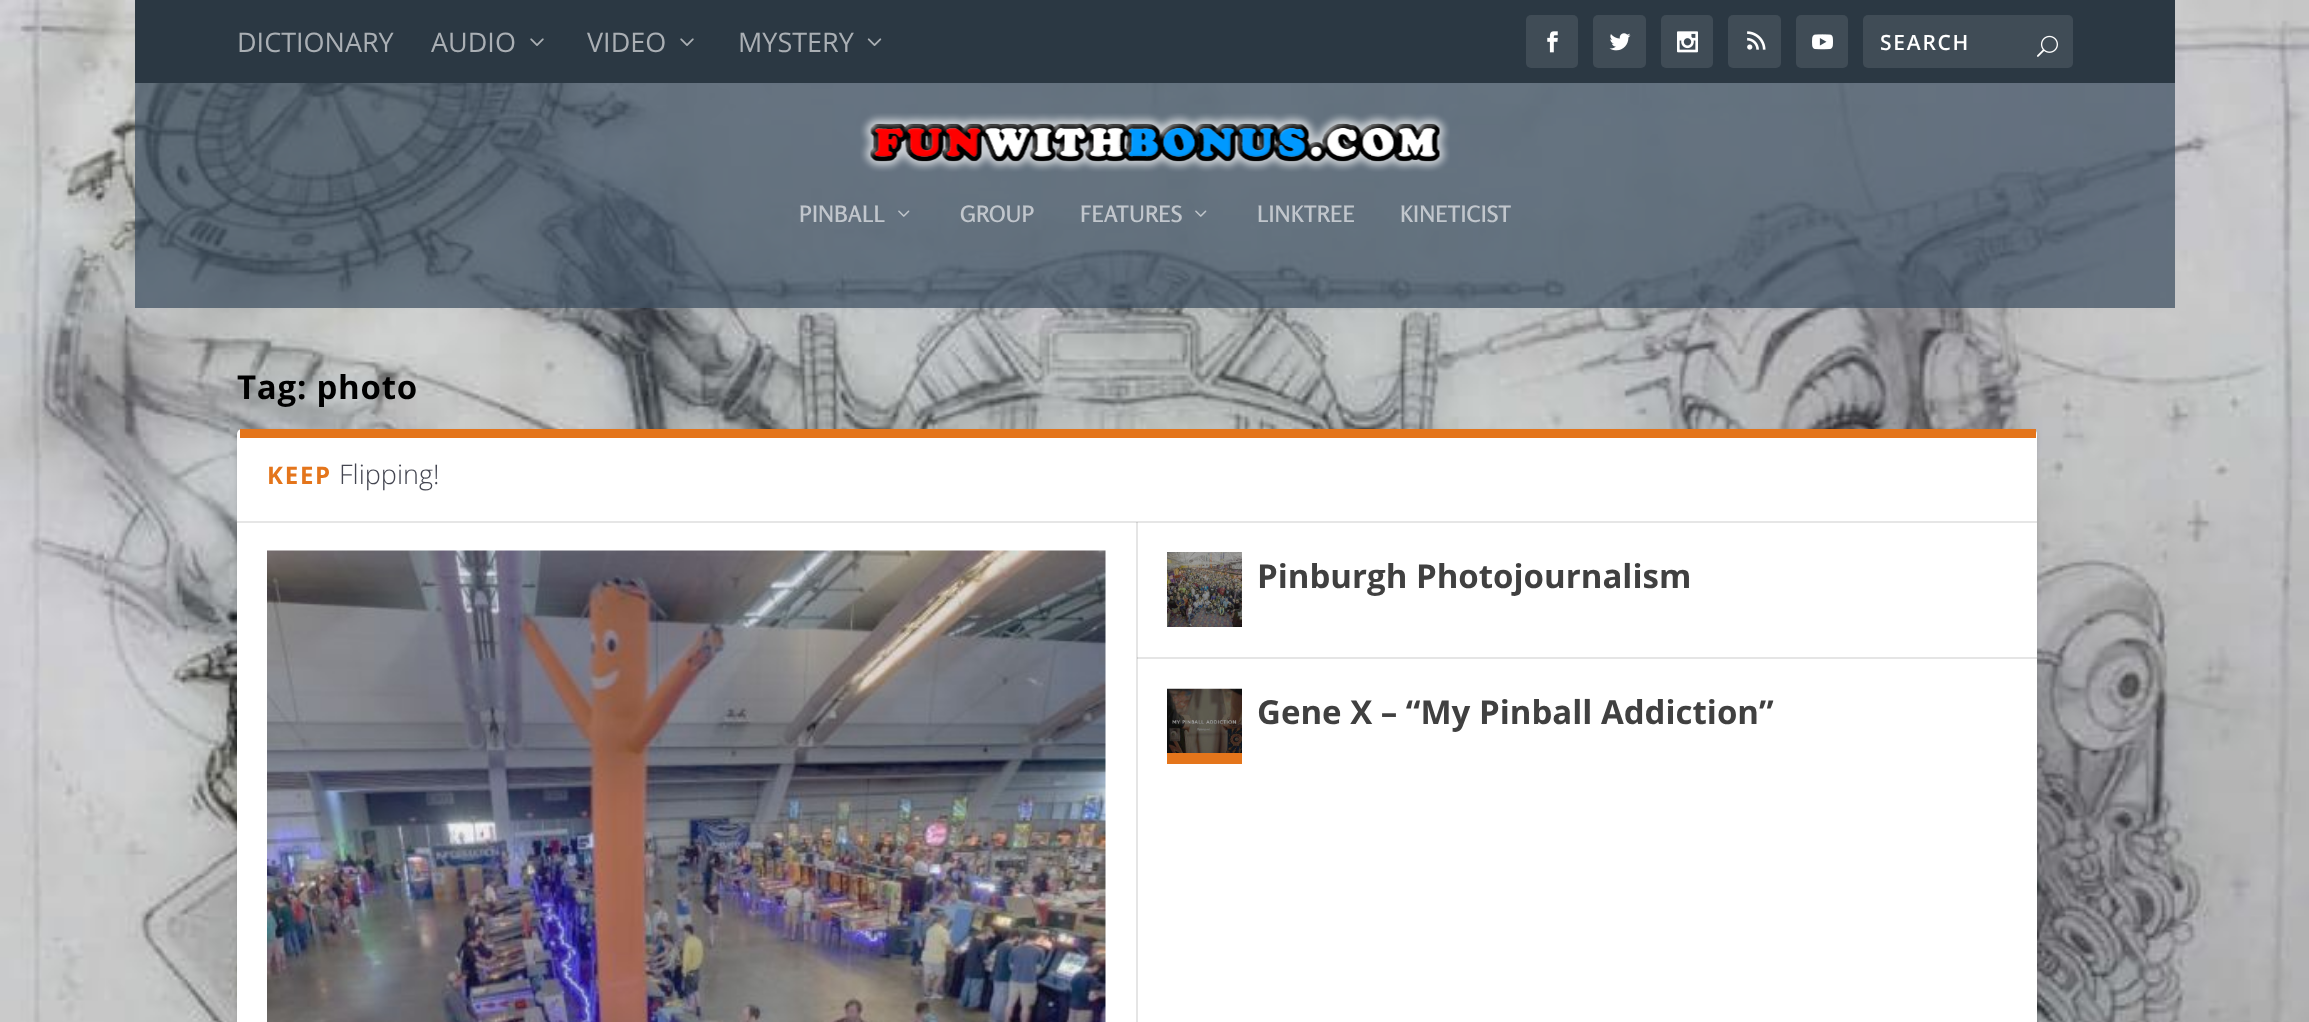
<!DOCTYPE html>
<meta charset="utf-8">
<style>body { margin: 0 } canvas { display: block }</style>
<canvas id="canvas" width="2309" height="1022"></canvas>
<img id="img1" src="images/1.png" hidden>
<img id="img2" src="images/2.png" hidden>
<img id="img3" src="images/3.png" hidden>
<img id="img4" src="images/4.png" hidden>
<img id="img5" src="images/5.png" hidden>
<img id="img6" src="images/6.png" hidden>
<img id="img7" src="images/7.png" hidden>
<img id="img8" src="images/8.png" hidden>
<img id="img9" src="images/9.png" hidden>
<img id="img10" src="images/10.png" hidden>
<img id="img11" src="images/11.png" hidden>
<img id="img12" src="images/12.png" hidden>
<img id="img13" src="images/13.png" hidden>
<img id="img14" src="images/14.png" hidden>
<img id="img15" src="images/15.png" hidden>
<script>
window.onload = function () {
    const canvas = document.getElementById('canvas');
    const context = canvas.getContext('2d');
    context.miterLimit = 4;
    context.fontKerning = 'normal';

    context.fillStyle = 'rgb(255, 255, 255)';
    context.fillRect(0, 0, 2309, 1022);
    context.drawImage(document.getElementById('img1'), 0, 0, 2309, 1022);
    context.fillStyle = 'rgb(43, 56, 67)';
    context.fillRect(135, 0, 2040, 83);
    context.drawImage(document.getElementById('img2'), 530, 38, 14, 8);
    context.drawImage(document.getElementById('img2'), 680, 38, 14, 8);
    context.drawImage(document.getElementById('img3'), 867, 38, 15, 8);
    context.fillStyle = 'rgb(64, 76, 86)';
    context.beginPath();
    context.roundRect(1526, 15, 52, 53, 5);
    context.fill();
    context.drawImage(document.getElementById('img4'), 1547, 31, 11, 22);
    context.beginPath();
    context.roundRect(1593, 15, 53, 53, 5);
    context.fill();
    context.drawImage(document.getElementById('img5'), 1609, 33, 22, 18);
    context.beginPath();
    context.roundRect(1661, 15, 52, 53, 5);
    context.fill();
    context.drawImage(document.getElementById('img6'), 1677, 31, 21, 22);
    context.beginPath();
    context.roundRect(1728, 15, 53, 53, 5);
    context.fill();
    context.drawImage(document.getElementById('img7'), 1747, 31, 19, 19);
    context.beginPath();
    context.roundRect(1796, 15, 52, 53, 5);
    context.fill();
    context.drawImage(document.getElementById('img8'), 1812, 34, 21, 16);
    context.beginPath();
    context.roundRect(1863, 15, 210, 53, 5);
    context.fill();
    context.drawImage(document.getElementById('img9'), 2037, 35, 21, 22);
    context.fillStyle = 'rgba(62, 80, 98, 0.73)';
    context.fillRect(135, 83, 2040, 225);
    context.drawImage(document.getElementById('img10'), 860, 113, 590, 59);
    context.drawImage(document.getElementById('img11'), 898, 210, 12, 7);
    context.drawImage(document.getElementById('img12'), 1195, 210, 12, 7);
    context.fillStyle = 'rgba(0, 0, 0, 0.1)';
    context.filter = 'blur(2px)';
    context.beginPath();
    context.roundRect(237, 431, 1800, 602, 5);
    context.fill();
    context.filter = 'none';
    context.fillStyle = 'rgb(255, 255, 255)';
    context.beginPath();
    context.roundRect(237, 429, 1800, 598, 5);
    context.fill();
    context.fillStyle = 'rgb(228, 117, 27)';
    context.fillRect(240, 429, 1796, 9);
    context.fillStyle = 'rgb(230, 230, 230)';
    context.fillRect(237, 521, 1800, 2);
    context.fillStyle = 'rgba(0, 0, 0, 0.1)';
    context.fillRect(1136, 522, 2, 500);
    context.drawImage(document.getElementById('img13'), 267, 550, 839, 472);
    context.fillRect(1137, 657, 900, 2);
    context.drawImage(document.getElementById('img14'), 1167, 552, 75, 75);
    context.fillStyle = 'rgb(228, 117, 27)';
    context.fillRect(1167, 753, 75, 11);
    context.drawImage(document.getElementById('img15'), 1167, 688, 75, 65);
    context.font = '27px Open Sans';
    context.fillStyle = 'rgb(170, 175, 180)';
    context.fillText('DICTIONARY', 237, 52);
    context.fillText('AUDIO', 431, 52);
    context.fillText('VIDEO', 587, 52);
    context.fillText('MYSTERY', 738, 52);
    context.letterSpacing = '1.75px';
    context.font = '600 21px Open Sans';
    context.fillStyle = 'rgb(255, 255, 255)';
    context.fillText('SEARCH', 1880, 50);
    context.letterSpacing = '0px';
    context.font = '600 22.5px Rosario';
    context.fillStyle = 'rgb(193, 198, 204)';
    context.fillText('PINBALL', 799, 222);
    context.fillText('GROUP', 960, 222);
    context.fillText('FEATURES', 1080, 222);
    context.fillText('LINKTREE', 1257, 222);
    context.fillText('KINETICIST', 1400, 222);
    context.letterSpacing = '0.75px';
    context.font = 'bold 33px Open Sans';
    context.fillStyle = 'rgb(0, 0, 0)';
    context.fillText('Tag: photo', 237, 399);
    context.letterSpacing = '1.75px';
    context.font = 'bold 24px Open Sans';
    context.fillStyle = 'rgb(228, 117, 27)';
    context.fillText('KEEP', 267, 484);
    context.letterSpacing = '0px';
    context.font = '300 27px Open Sans';
    context.fillStyle = 'rgb(68, 70, 81)';
    context.fillText('Flipping!', 339, 484);
    context.font = 'bold 33px Open Sans';
    context.fillStyle = 'rgb(64, 64, 64)';
    context.fillText('Pinburgh Photojournalism', 1257, 588);
    context.fillText('Gene X – “My Pinball Addiction”', 1257, 724);
};
</script>
